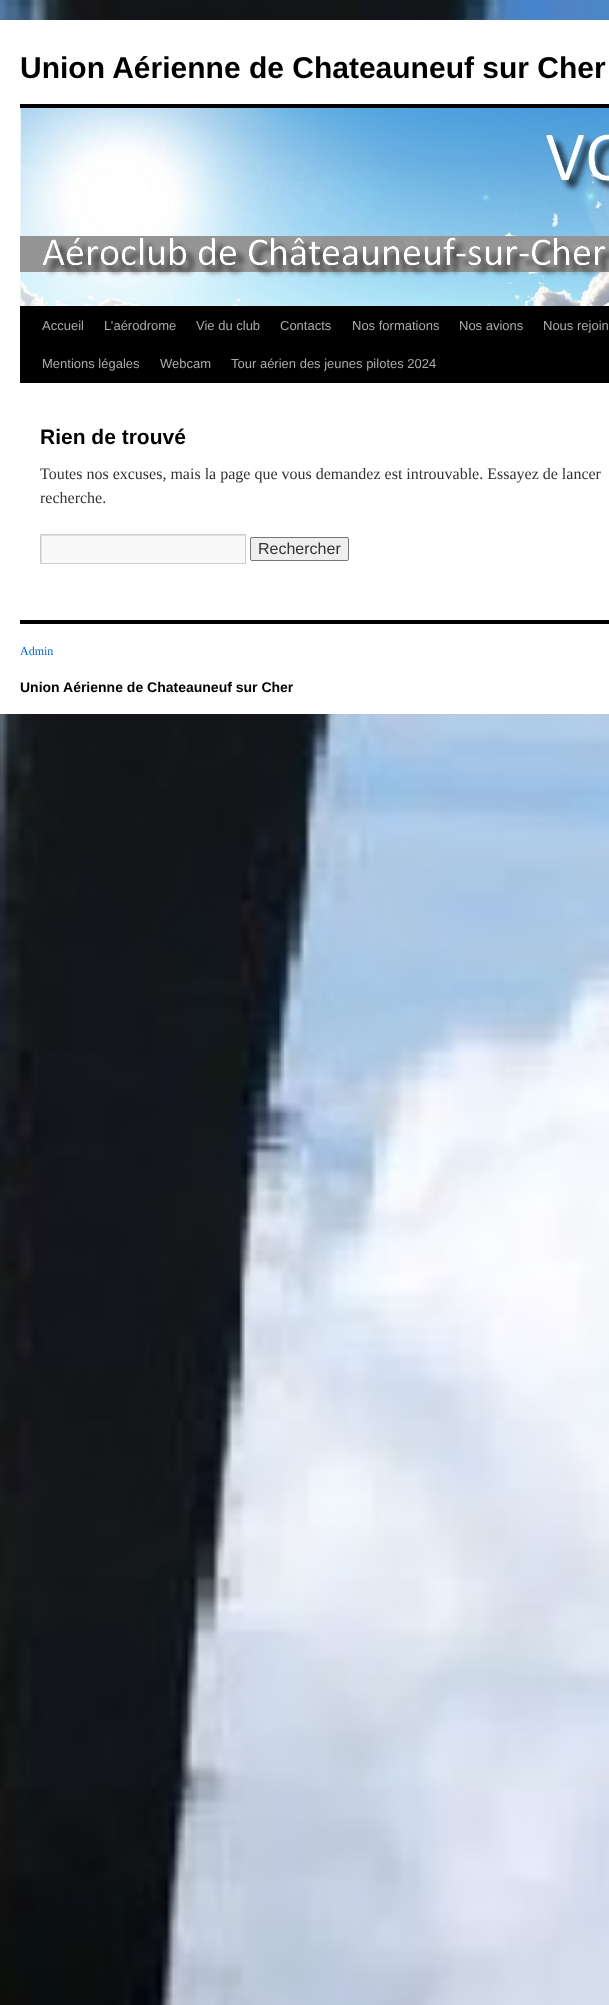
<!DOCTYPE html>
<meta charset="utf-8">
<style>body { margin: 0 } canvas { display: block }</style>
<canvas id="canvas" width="609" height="2005"></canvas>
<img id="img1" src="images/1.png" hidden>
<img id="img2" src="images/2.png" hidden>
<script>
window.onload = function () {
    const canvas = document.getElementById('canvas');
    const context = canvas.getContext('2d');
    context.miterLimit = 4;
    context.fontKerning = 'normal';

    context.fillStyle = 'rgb(255, 255, 255)';
    context.fillRect(0, 0, 609, 2005);
    context.drawImage(document.getElementById('img1'), 0, 0, 609, 2005);
    context.fillRect(0, 20, 609, 694);
    context.fillStyle = 'rgb(0, 0, 0)';
    context.fillRect(20, 104, 589, 4);
    context.fillRect(20, 306, 589, 77);
    context.drawImage(document.getElementById('img2'), 20, 108, 589, 198);
    context.fillStyle = 'rgb(249, 249, 249)';
    context.fillRect(42, 536, 203, 27);
    context.save();
    context.beginPath();
    context.rect(41, 535, 204, 28);
    context.clip();
    context.fillStyle = 'rgb(224, 224, 224)';
    context.beginPath();
    context.moveTo(-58, 436);
    context.lineTo(344, 436);
    context.lineTo(344, 662);
    context.lineTo(-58, 662);
    context.closePath();
    context.moveTo(42, 536);
    context.lineTo(246, 536);
    context.lineTo(246, 564);
    context.lineTo(42, 564);
    context.closePath();
    context.fill('evenodd');
    context.restore();
    context.strokeStyle = 'rgb(204, 204, 204)';
    context.strokeRect(40.5, 534.5, 205, 29);
    context.fillStyle = 'rgb(239, 239, 239)';
    context.beginPath();
    context.roundRect(250.5, 537.5, 98, 23, 1.5);
    context.fill();
    context.strokeStyle = 'rgb(118, 118, 118)';
    context.stroke();
    context.fillStyle = 'rgb(0, 0, 0)';
    context.fillRect(20, 620, 589, 4);
    context.font = 'bold 30px Liberation Sans';
    context.fillText('Union Aérienne de Chateauneuf sur Cher', 20, 78);
    context.font = '13px Liberation Sans';
    context.fillStyle = 'rgb(170, 170, 170)';
    context.fillText('Accueil', 42, 330);
    context.fillText('L’aérodrome', 104, 330);
    context.fillText('Vie du club', 196, 330);
    context.fillText('Contacts', 280, 330);
    context.fillText('Nos formations', 352, 330);
    context.fillText('Nos avions', 459, 330);
    context.fillText('Nous rejoin', 543, 330);
    context.fillText('Mentions légales', 42, 368);
    context.fillText('Webcam', 160, 368);
    context.fillText('Tour aérien des jeunes pilotes 2024', 231, 368);
    context.font = 'bold 21px Liberation Sans';
    context.fillStyle = 'rgb(0, 0, 0)';
    context.fillText('Rien de trouvé', 40, 444);
    context.font = '16px Liberation Serif';
    context.fillStyle = 'rgb(51, 51, 51)';
    context.fillText('Toutes nos excuses, mais la page que vous demandez est introuvable. Essayez de lancer', 40, 479);
    context.fillText('recherche.', 40, 503);
    context.font = '16px Liberation Sans';
    context.fillText('Rechercher', 258, 554);
    context.font = '12px Liberation Serif';
    context.fillStyle = 'rgb(0, 102, 204)';
    context.fillText('Admin', 20, 655);
    context.font = 'bold 14px Liberation Sans';
    context.fillStyle = 'rgb(0, 0, 0)';
    context.fillText('Union Aérienne de Chateauneuf sur Cher', 20, 692);
};
</script>
